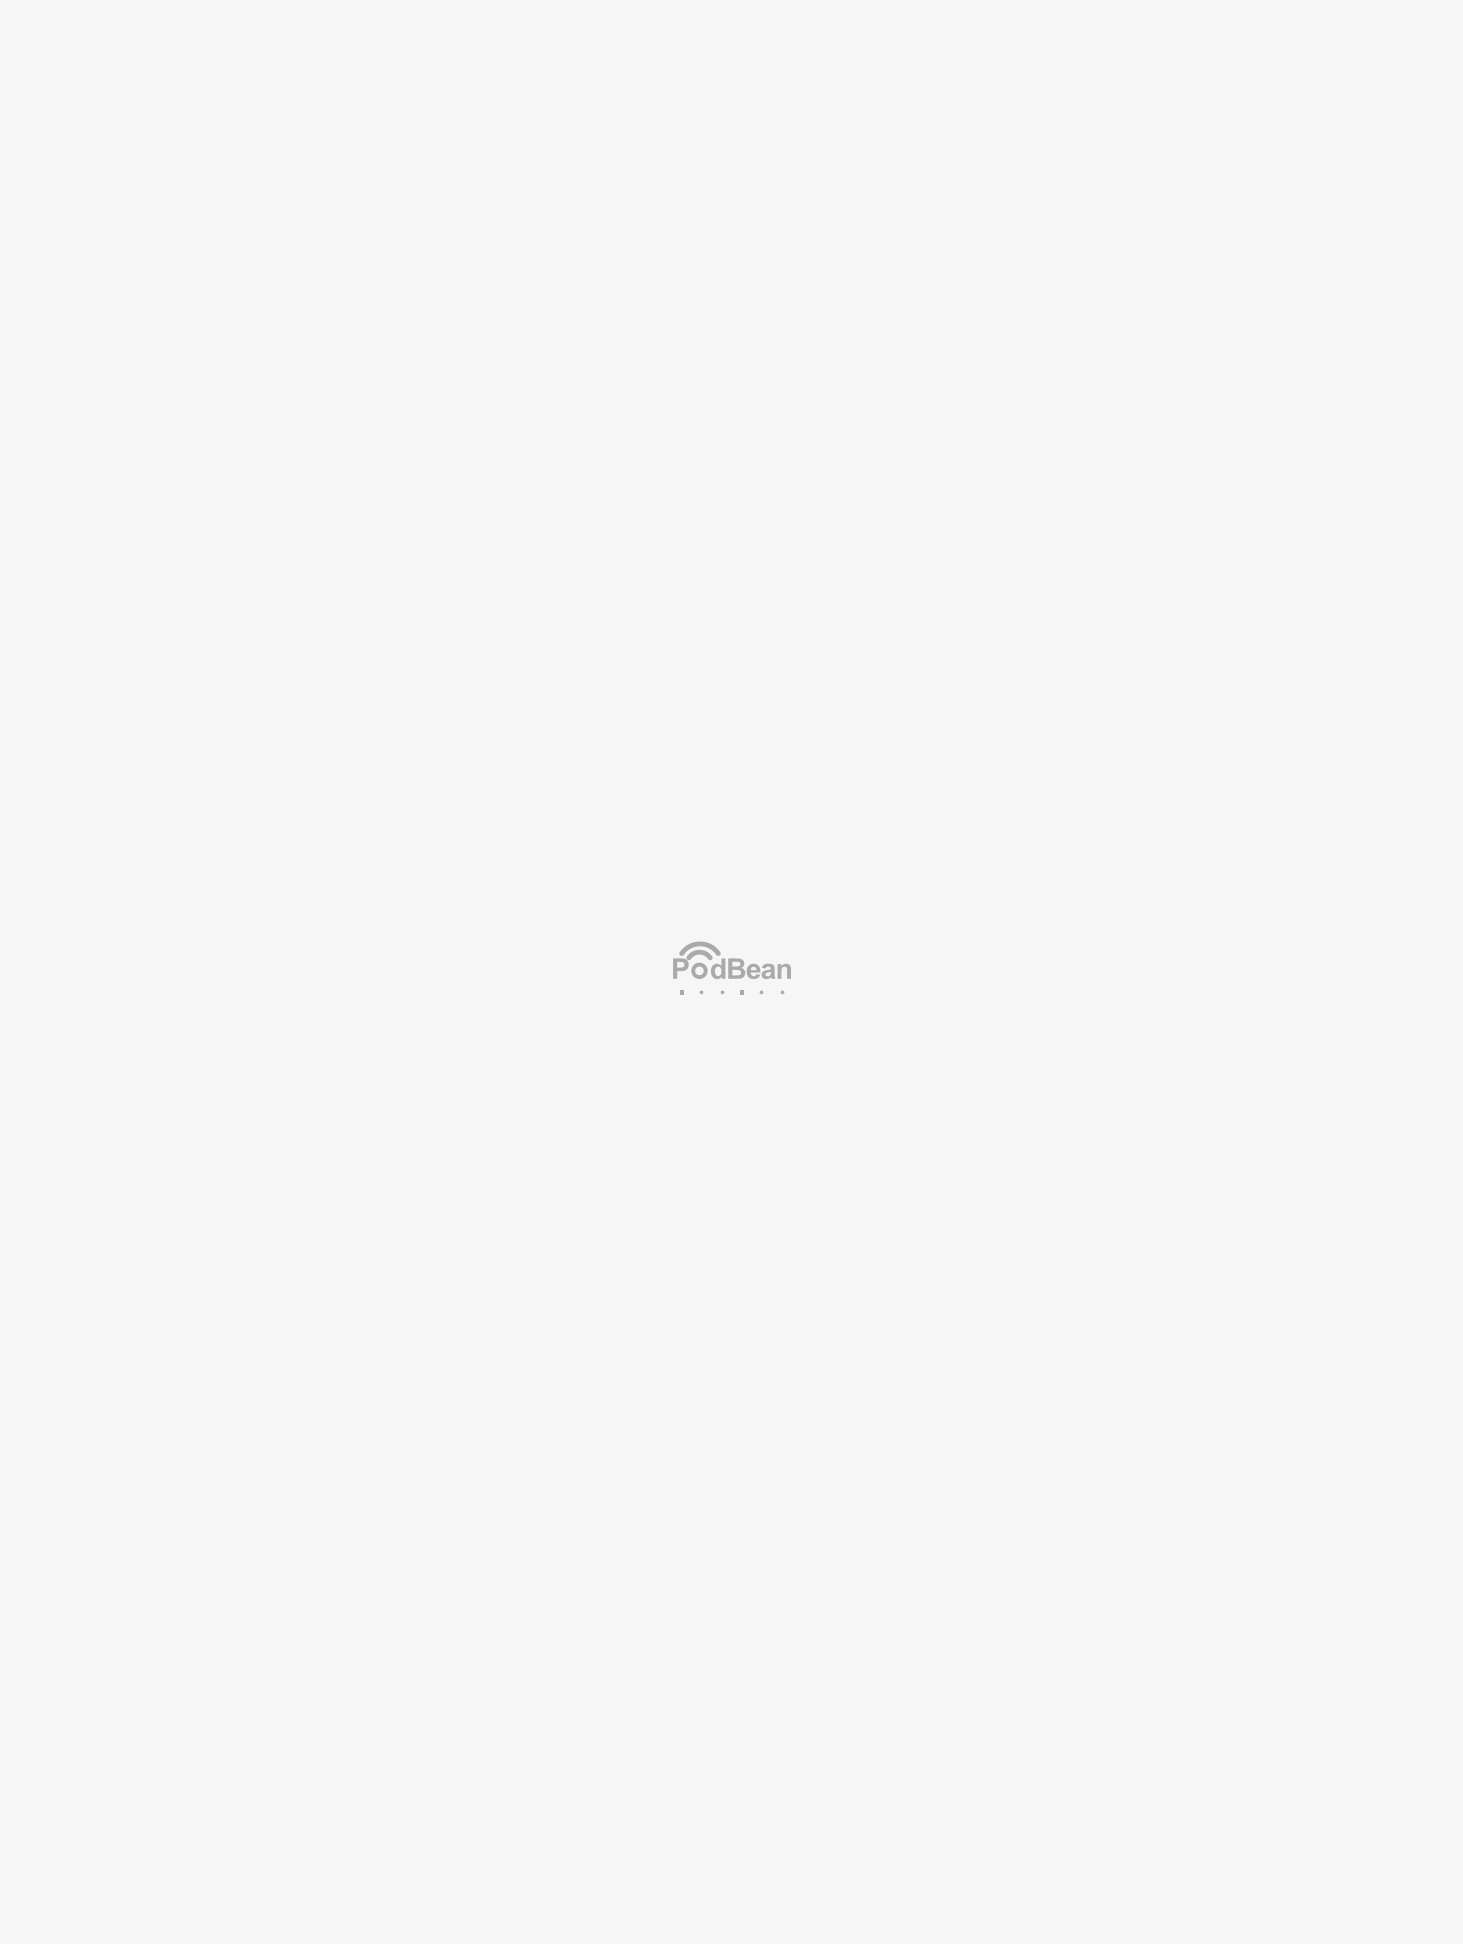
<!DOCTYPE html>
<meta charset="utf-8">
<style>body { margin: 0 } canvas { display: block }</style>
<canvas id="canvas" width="1463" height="1944"></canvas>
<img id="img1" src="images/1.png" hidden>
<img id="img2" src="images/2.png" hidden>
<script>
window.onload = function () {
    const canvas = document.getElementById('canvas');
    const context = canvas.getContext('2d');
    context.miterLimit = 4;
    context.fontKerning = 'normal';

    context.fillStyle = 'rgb(246, 246, 246)';
    context.fillRect(0, 0, 1463, 1944);
    context.drawImage(document.getElementById('img1'), 673, 941, 118, 39);
    context.fillStyle = 'rgb(170, 170, 170)';
    context.fillRect(680, 990, 4, 5);
    context.drawImage(document.getElementById('img2'), 699, 990, 5, 5);
    context.drawImage(document.getElementById('img2'), 720, 990, 5, 5);
    context.fillRect(740, 990, 4, 5);
    context.drawImage(document.getElementById('img2'), 759, 990, 5, 5);
    context.drawImage(document.getElementById('img2'), 780, 990, 5, 5);
};
</script>
